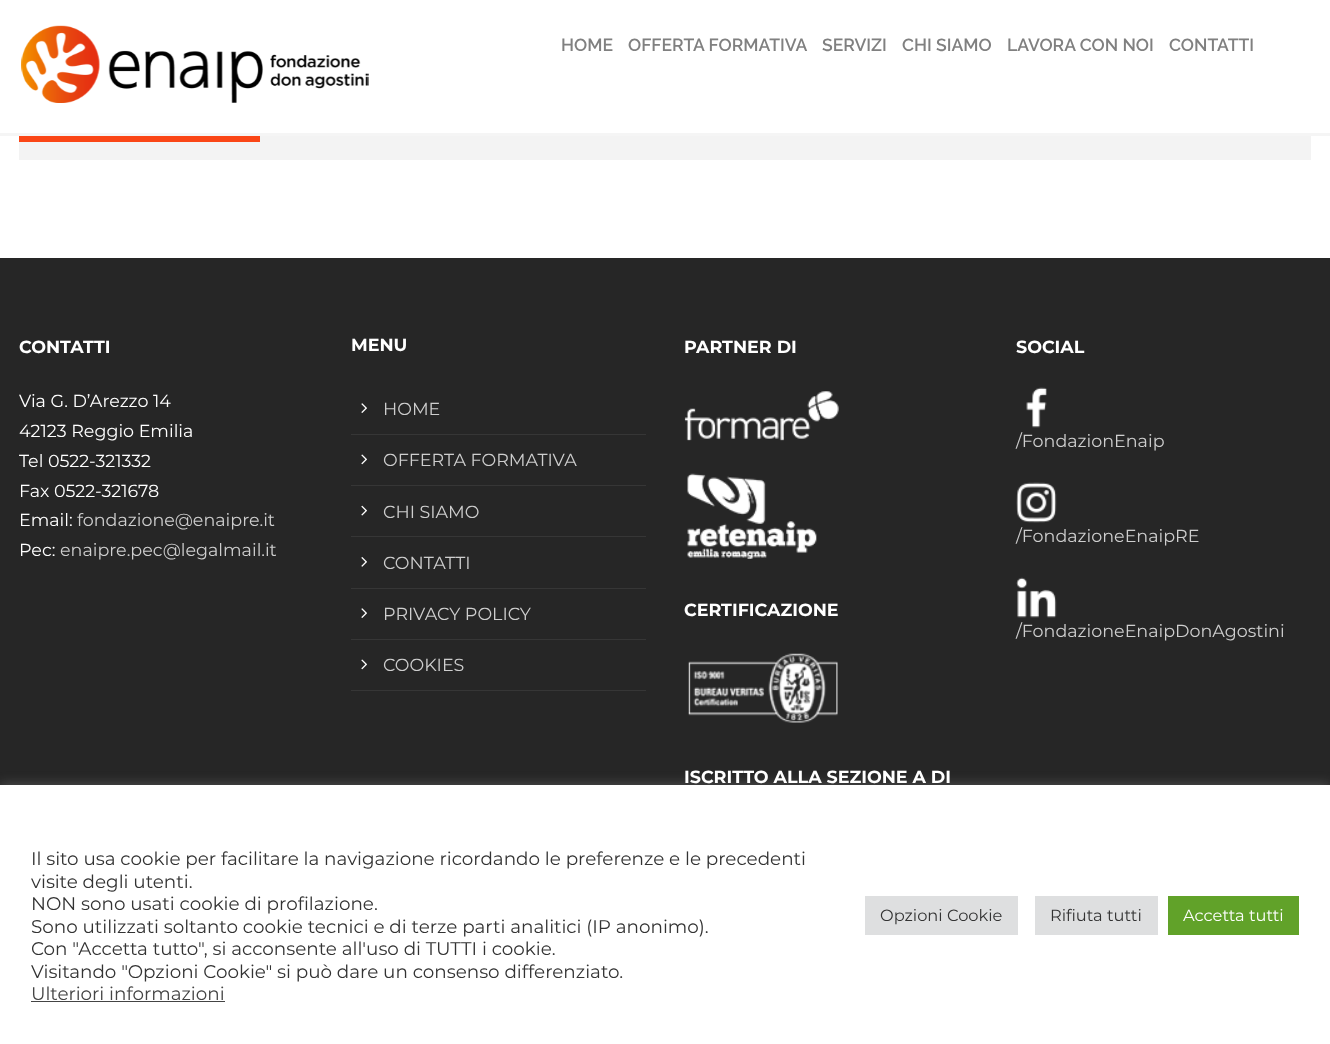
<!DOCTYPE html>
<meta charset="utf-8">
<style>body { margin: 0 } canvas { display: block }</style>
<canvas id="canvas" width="1330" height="1044"></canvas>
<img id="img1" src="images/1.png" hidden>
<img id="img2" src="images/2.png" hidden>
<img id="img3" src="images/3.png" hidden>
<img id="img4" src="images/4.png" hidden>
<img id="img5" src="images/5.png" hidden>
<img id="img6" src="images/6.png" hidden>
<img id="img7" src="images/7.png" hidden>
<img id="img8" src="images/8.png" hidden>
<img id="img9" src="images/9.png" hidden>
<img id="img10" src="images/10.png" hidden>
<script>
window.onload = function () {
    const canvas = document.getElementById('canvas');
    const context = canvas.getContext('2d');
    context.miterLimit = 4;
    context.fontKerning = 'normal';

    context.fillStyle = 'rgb(255, 255, 255)';
    context.fillRect(0, 0, 1330, 1044);
    context.fillStyle = 'rgb(245, 245, 245)';
    context.fillRect(0, 133, 1330, 3);
    context.drawImage(document.getElementById('img1'), 21, 25, 348, 78);
    context.fillStyle = 'rgb(243, 243, 243)';
    context.fillRect(19, 136, 1292, 24);
    context.fillStyle = 'rgb(250, 70, 22)';
    context.fillRect(19, 136, 241, 6);
    context.fillStyle = 'rgb(38, 38, 38)';
    context.fillRect(0, 258, 1330, 527);
    context.fillStyle = 'rgb(54, 54, 54)';
    context.fillRect(351, 434, 295, 1);
    context.drawImage(document.getElementById('img2'), 361, 403, 6, 10);
    context.fillRect(351, 485, 295, 1);
    context.drawImage(document.getElementById('img3'), 361, 454, 6, 11);
    context.fillRect(351, 536, 295, 1);
    context.drawImage(document.getElementById('img4'), 361, 505, 6, 11);
    context.fillRect(351, 588, 295, 1);
    context.drawImage(document.getElementById('img5'), 361, 557, 6, 10);
    context.fillRect(351, 639, 295, 1);
    context.drawImage(document.getElementById('img2'), 361, 608, 6, 10);
    context.fillRect(351, 690, 295, 1);
    context.drawImage(document.getElementById('img3'), 361, 659, 6, 11);
    context.drawImage(document.getElementById('img6'), 684, 391, 155, 168);
    context.drawImage(document.getElementById('img7'), 688, 653, 150, 70);
    context.drawImage(document.getElementById('img8'), 1026, 387, 21, 41);
    context.drawImage(document.getElementById('img9'), 1016, 482, 41, 41);
    context.drawImage(document.getElementById('img10'), 1016, 577, 41, 41);
    context.fillStyle = 'rgba(172, 171, 171, 0.3)';
    context.filter = 'blur(6px)';
    context.beginPath();
    context.rect(0, 784, 1330, 260);
    context.fill();
    context.filter = 'none';
    context.fillStyle = 'rgb(255, 255, 255)';
    context.fillRect(0, 785, 1330, 259);
    context.fillStyle = 'rgb(68, 68, 68)';
    context.fillRect(31, 1001, 194, 1);
    context.fillStyle = 'rgb(222, 223, 224)';
    context.fillRect(865, 896, 153, 39);
    context.fillRect(1035, 896, 123, 39);
    context.fillStyle = 'rgb(97, 162, 41)';
    context.fillRect(1168, 896, 131, 39);
    context.font = '600 17.5px Raleway';
    context.fillStyle = 'rgb(128, 128, 128)';
    context.fillText('HOME', 561, 51);
    context.fillText('OFFERTA FORMATIVA', 628, 51);
    context.fillText('SERVIZI', 822, 51);
    context.fillText('CHI SIAMO', 902, 51);
    context.fillText('LAVORA CON NOI', 1007, 51);
    context.fillText('CONTATTI', 1169, 51);
    context.font = 'bold 17.5px Montserrat';
    context.fillStyle = 'rgb(255, 255, 255)';
    context.fillText('CONTATTI', 19, 353);
    context.font = '17.5px Montserrat';
    context.fillText('Via G. D’Arezzo 14', 19, 407);
    context.fillText('42123 Reggio Emilia', 19, 437);
    context.fillText('Tel 0522-321332', 19, 467);
    context.fillText('Fax 0522-321678', 19, 497);
    context.fillText('Email:', 19, 526);
    context.fillStyle = 'rgb(206, 206, 206)';
    context.fillText('fondazione@enaipre.it', 77, 526);
    context.fillStyle = 'rgb(255, 255, 255)';
    context.fillText('Pec:', 19, 556);
    context.fillStyle = 'rgb(206, 206, 206)';
    context.fillText('enaipre.pec@legalmail.it', 60, 556);
    context.font = 'bold 17.5px Montserrat';
    context.fillStyle = 'rgb(255, 255, 255)';
    context.fillText('MENU', 351, 351);
    context.font = '17.5px Montserrat';
    context.fillStyle = 'rgb(206, 206, 206)';
    context.fillText('HOME', 383, 415);
    context.fillText('OFFERTA FORMATIVA', 383, 466);
    context.fillText('CHI SIAMO', 383, 518);
    context.fillText('CONTATTI', 383, 569);
    context.fillText('PRIVACY POLICY', 383, 620);
    context.fillText('COOKIES', 383, 671);
    context.font = 'bold 17.5px Montserrat';
    context.fillStyle = 'rgb(255, 255, 255)';
    context.fillText('PARTNER DI', 684, 353);
    context.fillText('CERTIFICAZIONE', 684, 616);
    context.fillText('ISCRITTO ALLA SEZIONE A DI', 684, 783);
    context.fillText('SOCIAL', 1016, 353);
    context.font = '17.5px Montserrat';
    context.fillStyle = 'rgb(206, 206, 206)';
    context.fillText('/FondazionEnaip', 1016, 447);
    context.fillText('/FondazioneEnaipRE', 1016, 542);
    context.fillText('/FondazioneEnaipDonAgostini', 1016, 637);
    context.font = '18.35px Montserrat';
    context.fillStyle = 'rgb(51, 51, 51)';
    context.fillText('Il sito usa cookie per facilitare la navigazione ricordando le preferenze e le precedenti', 31, 865);
    context.fillText('visite degli utenti.', 31, 888);
    context.fillText('NON sono usati cookie di profilazione.', 31, 910);
    context.fillText('Sono utilizzati soltanto cookie tecnici e di terze parti analitici (IP anonimo).', 31, 933);
    context.fillText('Con "Accetta tutto", si acconsente all\'uso di TUTTI i cookie.', 31, 955);
    context.fillText('Visitando "Opzioni Cookie" si può dare un consenso differenziato.', 31, 978);
    context.fillStyle = 'rgb(68, 68, 68)';
    context.fillText('Ulteriori informazioni', 31, 1000);
    context.font = '16.25px Montserrat';
    context.fillStyle = 'rgb(51, 51, 51)';
    context.fillText('Opzioni Cookie', 880, 921);
    context.fillText('Rifiuta tutti', 1050, 921);
    context.fillStyle = 'rgb(255, 255, 255)';
    context.fillText('Accetta tutti', 1183, 921);
};
</script>
